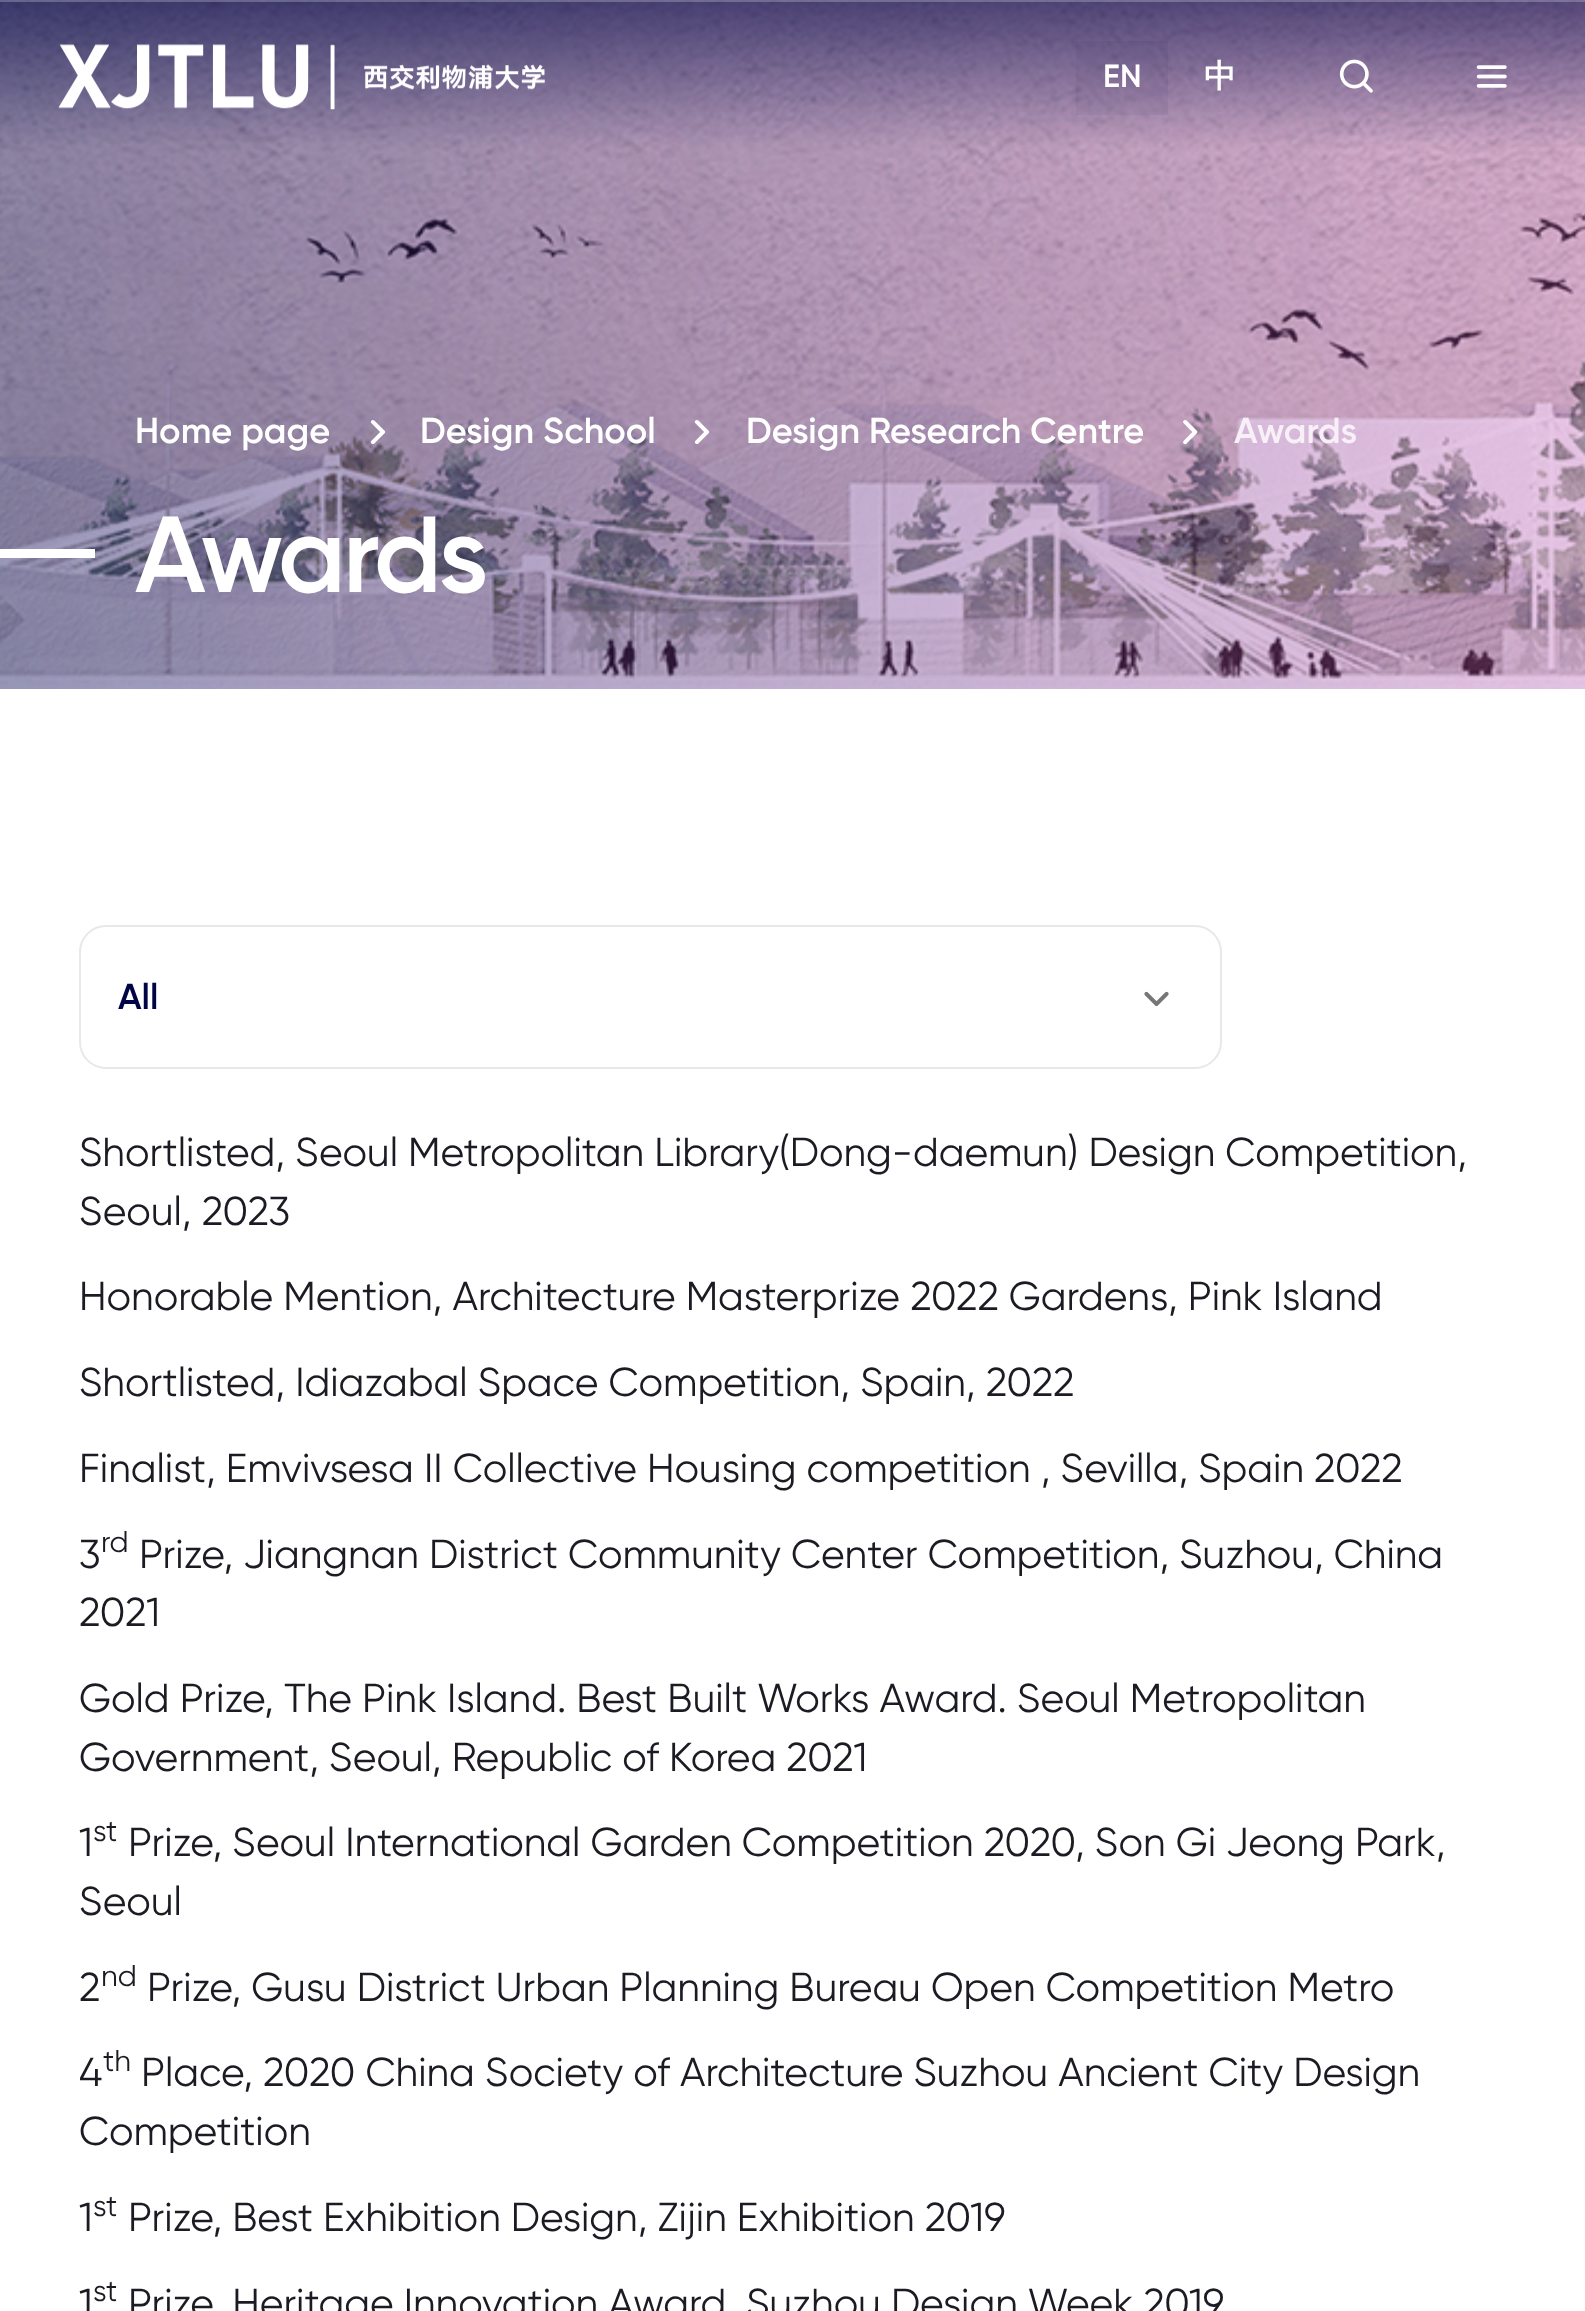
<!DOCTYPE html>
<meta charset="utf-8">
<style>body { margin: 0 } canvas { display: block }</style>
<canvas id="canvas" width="1585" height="2311"></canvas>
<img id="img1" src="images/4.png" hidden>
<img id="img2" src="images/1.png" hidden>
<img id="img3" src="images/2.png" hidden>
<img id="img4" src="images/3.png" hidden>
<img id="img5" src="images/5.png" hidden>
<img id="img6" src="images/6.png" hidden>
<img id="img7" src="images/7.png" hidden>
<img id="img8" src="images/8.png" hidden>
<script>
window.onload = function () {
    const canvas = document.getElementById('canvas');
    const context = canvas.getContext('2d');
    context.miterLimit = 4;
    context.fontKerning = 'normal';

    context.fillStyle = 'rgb(255, 255, 255)';
    context.fillRect(0, 0, 1585, 2311);
    context.drawImage(document.getElementById('img1'), 0, 0, 1585, 689);
    context.fillStyle = 'rgba(242, 242, 249, 0.25)';
    context.fillRect(0, 0, 1585, 2);
    context.drawImage(document.getElementById('img2'), 58, 44, 487, 66);
    context.fillStyle = 'rgba(1, 5, 68, 0.05)';
    context.fillRect(1076, 41, 92, 74);
    context.drawImage(document.getElementById('img3'), 1339, 59, 34, 34);
    context.drawImage(document.getElementById('img4'), 1476, 65, 31, 23);
    context.drawImage(document.getElementById('img5'), 370, 420, 16, 24);
    context.drawImage(document.getElementById('img6'), 694, 420, 15, 24);
    context.drawImage(document.getElementById('img7'), 1183, 420, 15, 24);
    context.fillStyle = 'rgb(255, 255, 255)';
    context.fillRect(0, 549, 95, 9);
    context.beginPath();
    context.roundRect(80, 926, 1141, 142, 26);
    context.strokeStyle = 'rgb(232, 232, 233)';
    context.lineWidth = 2;
    context.stroke();
    context.drawImage(document.getElementById('img8'), 1144, 991, 25, 16);
    context.font = '600 32px Gilroy';
    context.fillText('EN', 1103, 87);
    context.font = 'bold 32px WenQuanYi Zen Hei';
    context.fillText('中', 1204, 87);
    context.font = '600 36px Gilroy';
    context.fillText('Home page', 135, 443);
    context.fillText('Design School', 420, 443);
    context.fillText('Design Research Centre', 746, 443);
    context.fillStyle = 'rgb(247, 241, 247)';
    context.fillText('Awards', 1234, 443);
    context.letterSpacing = '-3.25px';
    context.font = '600 108px Gilroy';
    context.fillStyle = 'rgb(255, 255, 255)';
    context.fillText('Awards', 135, 592);
    context.letterSpacing = '0px';
    context.font = '600 36px Gilroy';
    context.fillStyle = 'rgb(1, 5, 68)';
    context.fillText('All', 118, 1009);
    context.font = '40.5px Gilroy';
    context.fillStyle = 'rgb(27, 27, 35)';
    context.fillText('Shortlisted, Seoul Metropolitan Library(Dong-daemun) Design Competition,', 79, 1166);
    context.fillText('Seoul, 2023', 79, 1225);
    context.fillText('Honorable Mention, Architecture Masterprize 2022 Gardens, Pink Island', 79, 1310);
    context.fillText('Shortlisted, Idiazabal Space Competition, Spain, 2022', 79, 1396);
    context.fillText('Finalist, Emvivsesa II Collective Housing competition , Sevilla, Spain 2022', 79, 1482);
    context.fillText('3', 79, 1568);
    context.font = '30px Gilroy';
    context.fillText('rd', 101, 1552);
    context.font = '40.5px Gilroy';
    context.fillText('Prize, Jiangnan District Community Center Competition, Suzhou, China', 139, 1568);
    context.fillText('2021', 79, 1626);
    context.fillText('Gold Prize, The Pink Island. Best Built Works Award. Seoul Metropolitan', 79, 1712);
    context.fillText('Government, Seoul, Republic of Korea 2021', 79, 1771);
    context.fillText('1', 79, 1856);
    context.font = '30px Gilroy';
    context.fillText('st', 93, 1841);
    context.font = '40.5px Gilroy';
    context.fillText('Prize, Seoul International Garden Competition 2020, Son Gi Jeong Park,', 128, 1856);
    context.fillText('Seoul', 79, 1915);
    context.fillText('2', 79, 2001);
    context.font = '30px Gilroy';
    context.fillText('nd', 101, 1986);
    context.font = '40.5px Gilroy';
    context.fillText('Prize, Gusu District Urban Planning Bureau Open Competition Metro', 147, 2001);
    context.fillText('4', 79, 2086);
    context.font = '30px Gilroy';
    context.fillText('th', 103, 2071);
    context.font = '40.5px Gilroy';
    context.fillText('Place, 2020 China Society of Architecture Suzhou Ancient City Design', 141, 2086);
    context.fillText('Competition', 79, 2145);
    context.fillText('1', 79, 2231);
    context.font = '30px Gilroy';
    context.fillText('st', 93, 2216);
    context.font = '40.5px Gilroy';
    context.fillText('Prize, Best Exhibition Design, Zijin Exhibition 2019', 128, 2231);
    context.fillText('1', 79, 2317);
    context.font = '30px Gilroy';
    context.fillText('st', 93, 2301);
    context.font = '40.5px Gilroy';
    context.fillText('Prize, Heritage Innovation Award, Suzhou Design Week 2019', 128, 2317);
};
</script>
